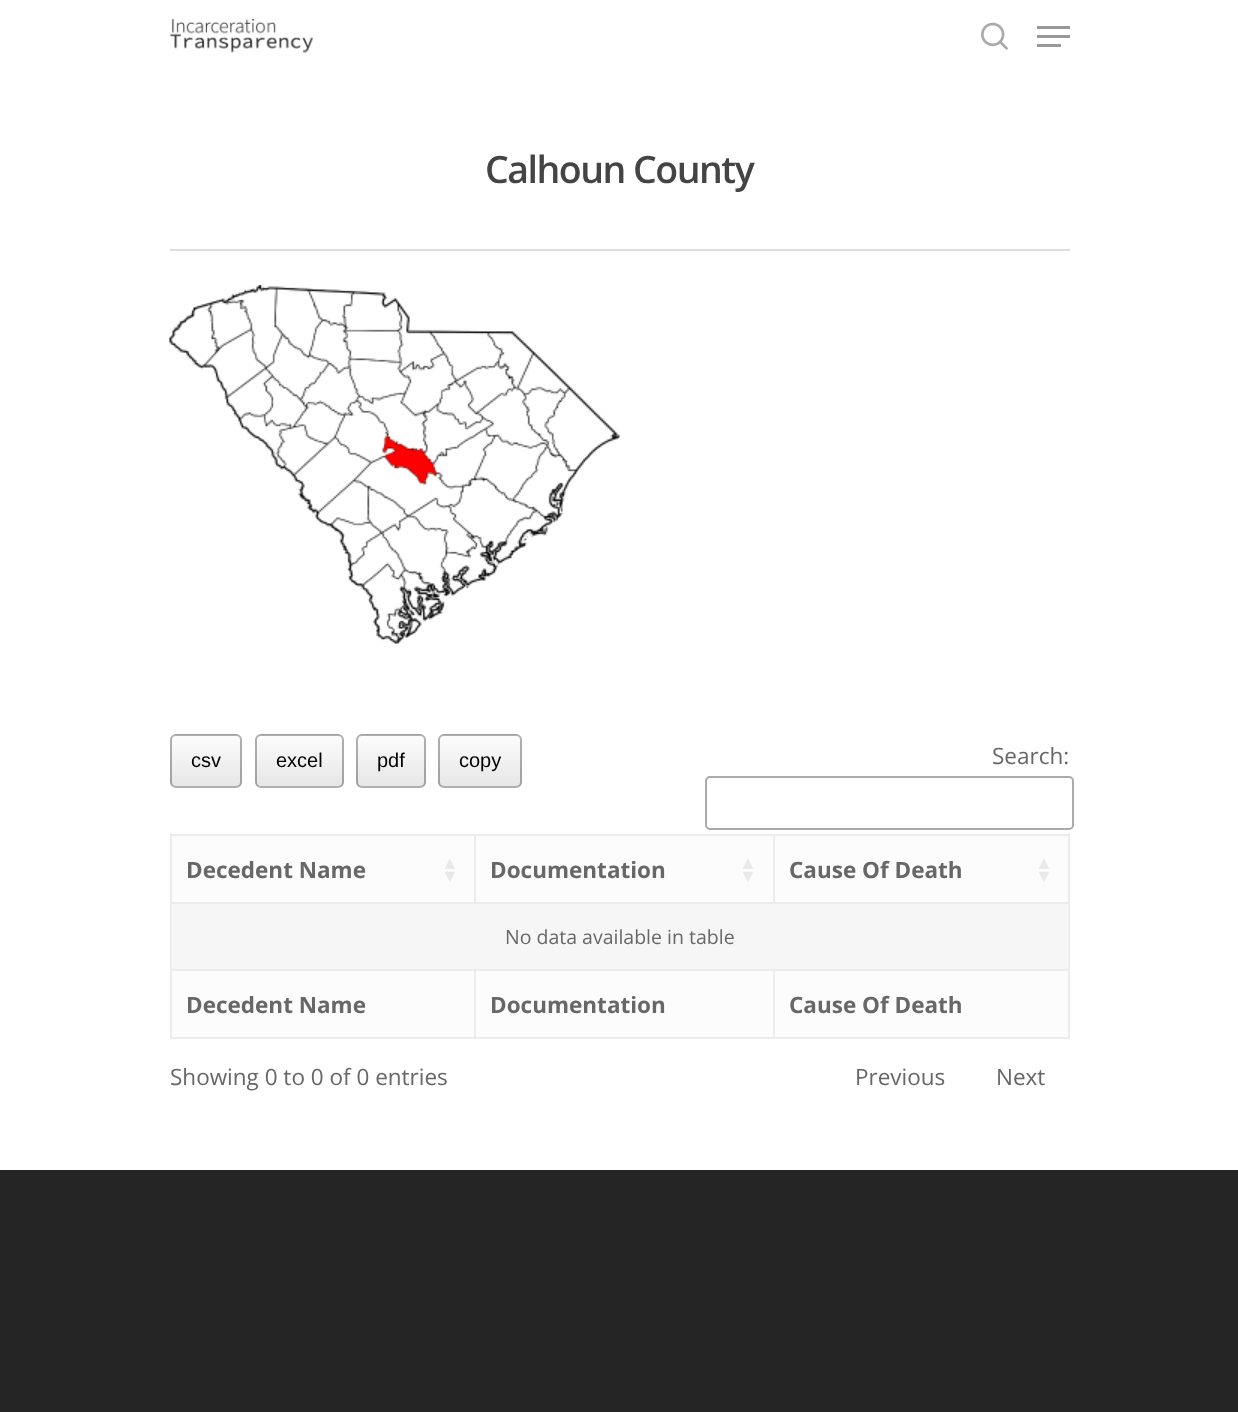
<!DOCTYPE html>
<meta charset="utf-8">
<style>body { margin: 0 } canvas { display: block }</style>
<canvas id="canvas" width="1238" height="1412"></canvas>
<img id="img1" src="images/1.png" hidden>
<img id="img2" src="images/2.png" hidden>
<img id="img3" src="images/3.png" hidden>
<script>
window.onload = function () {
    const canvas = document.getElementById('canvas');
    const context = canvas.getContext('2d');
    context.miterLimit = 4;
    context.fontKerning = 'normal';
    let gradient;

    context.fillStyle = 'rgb(255, 255, 255)';
    context.fillRect(0, 0, 1238, 1412);
    context.drawImage(document.getElementById('img1'), 169, 18, 145, 35);
    context.drawImage(document.getElementById('img2'), 981, 22, 27, 28);
    context.fillStyle = 'rgb(153, 153, 153)';
    context.fillRect(1037, 26, 33, 3);
    context.fillRect(1037, 44, 24, 3);
    context.fillRect(1037, 35, 33, 3);
    context.fillStyle = 'rgb(221, 221, 221)';
    context.fillRect(170, 249, 900, 2);
    context.drawImage(document.getElementById('img3'), 169, 285, 451, 359);
    context.save();
    context.beginPath();
    context.roundRect(170, 734, 72, 54, 6);
    context.clip();
    gradient = context.createLinearGradient(206, 684, 206, 735);
    gradient.addColorStop(0, 'rgb(253, 253, 253)');
    gradient.addColorStop(1, 'rgb(230, 230, 230)');
    context.fillStyle = gradient;
    context.fillRect(170, 734, 72, 1);
    gradient = context.createLinearGradient(206, 735, 206, 786);
    gradient.addColorStop(0, 'rgb(253, 253, 253)');
    gradient.addColorStop(1, 'rgb(230, 230, 230)');
    context.fillStyle = gradient;
    context.fillRect(170, 735, 72, 51);
    gradient = context.createLinearGradient(206, 786, 206, 837);
    gradient.addColorStop(0, 'rgb(253, 253, 253)');
    gradient.addColorStop(1, 'rgb(230, 230, 230)');
    context.fillStyle = gradient;
    context.fillRect(170, 786, 72, 2);
    context.restore();
    context.beginPath();
    context.roundRect(171, 735, 70, 52, 5);
    context.strokeStyle = 'rgba(0, 0, 0, 0.3)';
    context.lineWidth = 2;
    context.stroke();
    context.save();
    context.beginPath();
    context.roundRect(255, 734, 89, 54, 6);
    context.clip();
    gradient = context.createLinearGradient(299, 684, 299, 735);
    gradient.addColorStop(0, 'rgb(253, 253, 253)');
    gradient.addColorStop(1, 'rgb(230, 230, 230)');
    context.fillStyle = gradient;
    context.fillRect(255, 734, 89, 1);
    gradient = context.createLinearGradient(299, 735, 299, 786);
    gradient.addColorStop(0, 'rgb(253, 253, 253)');
    gradient.addColorStop(1, 'rgb(230, 230, 230)');
    context.fillStyle = gradient;
    context.fillRect(255, 735, 89, 51);
    gradient = context.createLinearGradient(299, 786, 299, 837);
    gradient.addColorStop(0, 'rgb(253, 253, 253)');
    gradient.addColorStop(1, 'rgb(230, 230, 230)');
    context.fillStyle = gradient;
    context.fillRect(255, 786, 89, 2);
    context.restore();
    context.beginPath();
    context.roundRect(256, 735, 87, 52, 5);
    context.stroke();
    context.save();
    context.beginPath();
    context.roundRect(356, 734, 70, 54, 6);
    context.clip();
    gradient = context.createLinearGradient(391, 684, 391, 735);
    gradient.addColorStop(0, 'rgb(253, 253, 253)');
    gradient.addColorStop(1, 'rgb(230, 230, 230)');
    context.fillStyle = gradient;
    context.fillRect(356, 734, 70, 1);
    gradient = context.createLinearGradient(391, 735, 391, 786);
    gradient.addColorStop(0, 'rgb(253, 253, 253)');
    gradient.addColorStop(1, 'rgb(230, 230, 230)');
    context.fillStyle = gradient;
    context.fillRect(356, 735, 70, 51);
    gradient = context.createLinearGradient(391, 786, 391, 837);
    gradient.addColorStop(0, 'rgb(253, 253, 253)');
    gradient.addColorStop(1, 'rgb(230, 230, 230)');
    context.fillStyle = gradient;
    context.fillRect(356, 786, 70, 2);
    context.restore();
    context.beginPath();
    context.roundRect(357, 735, 68, 52, 5);
    context.stroke();
    context.save();
    context.beginPath();
    context.roundRect(438, 734, 84, 54, 6);
    context.clip();
    gradient = context.createLinearGradient(480, 684, 480, 735);
    gradient.addColorStop(0, 'rgb(253, 253, 253)');
    gradient.addColorStop(1, 'rgb(230, 230, 230)');
    context.fillStyle = gradient;
    context.fillRect(438, 734, 84, 1);
    gradient = context.createLinearGradient(480, 735, 480, 786);
    gradient.addColorStop(0, 'rgb(253, 253, 253)');
    gradient.addColorStop(1, 'rgb(230, 230, 230)');
    context.fillStyle = gradient;
    context.fillRect(438, 735, 84, 51);
    gradient = context.createLinearGradient(480, 786, 480, 837);
    gradient.addColorStop(0, 'rgb(253, 253, 253)');
    gradient.addColorStop(1, 'rgb(230, 230, 230)');
    context.fillStyle = gradient;
    context.fillRect(438, 786, 84, 2);
    context.restore();
    context.beginPath();
    context.roundRect(439, 735, 82, 52, 5);
    context.stroke();
    context.beginPath();
    context.roundRect(706, 777, 367, 52, 4);
    context.strokeStyle = 'rgb(170, 170, 170)';
    context.stroke();
    context.fillStyle = 'rgb(236, 236, 236)';
    context.fillRect(170, 834, 900, 2);
    context.fillStyle = 'rgb(252, 252, 252)';
    context.fillRect(172, 836, 896, 66);
    context.fillStyle = 'rgb(236, 236, 236)';
    context.fillRect(1068, 834, 2, 204);
    context.fillRect(773, 902, 297, 2);
    context.fillRect(773, 834, 2, 69);
    context.fillRect(474, 902, 300, 2);
    context.fillRect(474, 834, 2, 69);
    context.fillStyle = 'rgb(252, 252, 252)';
    context.fillRect(172, 971, 896, 66);
    context.fillStyle = 'rgb(236, 236, 236)';
    context.fillRect(773, 1037, 297, 2);
    context.fillRect(773, 969, 2, 69);
    context.fillRect(474, 1037, 300, 2);
    context.fillRect(474, 969, 2, 69);
    context.fillRect(170, 1037, 306, 2);
    context.fillRect(170, 969, 2, 69);
    context.fillRect(170, 969, 900, 2);
    context.fillRect(170, 902, 2, 69);
    context.fillRect(170, 902, 306, 2);
    context.fillRect(170, 834, 2, 69);
    context.fillStyle = 'rgb(252, 252, 252)';
    context.fillRect(172, 904, 896, 65);
    context.fillStyle = 'rgb(246, 246, 246)';
    context.fillRect(173, 904, 894, 65);
    context.fillStyle = 'rgb(37, 37, 37)';
    context.fillRect(0, 1170, 1238, 242);
    context.letterSpacing = '-1.5px';
    context.font = '600 37.5px Open Sans';
    context.fillStyle = 'rgb(68, 68, 68)';
    context.fillText('Calhoun County', 485, 183);
    context.letterSpacing = '0px';
    context.font = '20px Liberation Sans';
    context.fillStyle = 'rgb(0, 0, 0)';
    context.fillText('csv', 191, 767);
    context.fillText('excel', 276, 767);
    context.fillText('pdf', 377, 767);
    context.fillText('copy', 459, 767);
    context.font = '22.5px Open Sans';
    context.fillStyle = 'rgb(103, 103, 103)';
    context.fillText('Search:', 992, 764);
    context.font = 'bold 22.5px Open Sans';
    context.fillText('Decedent Name', 186, 878);
    context.font = 'bold 18px Liberation Serif';
    context.fillStyle = 'rgb(233, 233, 233)';
    context.fillText('▲', 441, 869);
    context.fillText('▼', 441, 882);
    context.font = 'bold 22.5px Open Sans';
    context.fillStyle = 'rgb(103, 103, 103)';
    context.fillText('Documentation', 490, 878);
    context.font = 'bold 18px Liberation Serif';
    context.fillStyle = 'rgb(233, 233, 233)';
    context.fillText('▲', 739, 869);
    context.fillText('▼', 739, 882);
    context.font = 'bold 22.5px Open Sans';
    context.fillStyle = 'rgb(103, 103, 103)';
    context.fillText('Cause Of Death', 789, 878);
    context.font = 'bold 18px Liberation Serif';
    context.fillStyle = 'rgb(233, 233, 233)';
    context.fillText('▲', 1035, 869);
    context.fillText('▼', 1035, 882);
    context.font = '19.5px Open Sans';
    context.fillStyle = 'rgb(103, 103, 103)';
    context.fillText('No data available in table', 505, 944);
    context.font = 'bold 22.5px Open Sans';
    context.fillText('Decedent Name', 186, 1013);
    context.fillText('Documentation', 490, 1013);
    context.fillText('Cause Of Death', 789, 1013);
    context.font = '22.5px Open Sans';
    context.fillText('Showing 0 to 0 of 0 entries', 170, 1085);
    context.fillText('Previous', 855, 1085);
    context.fillText('Next', 996, 1085);
};
</script>
